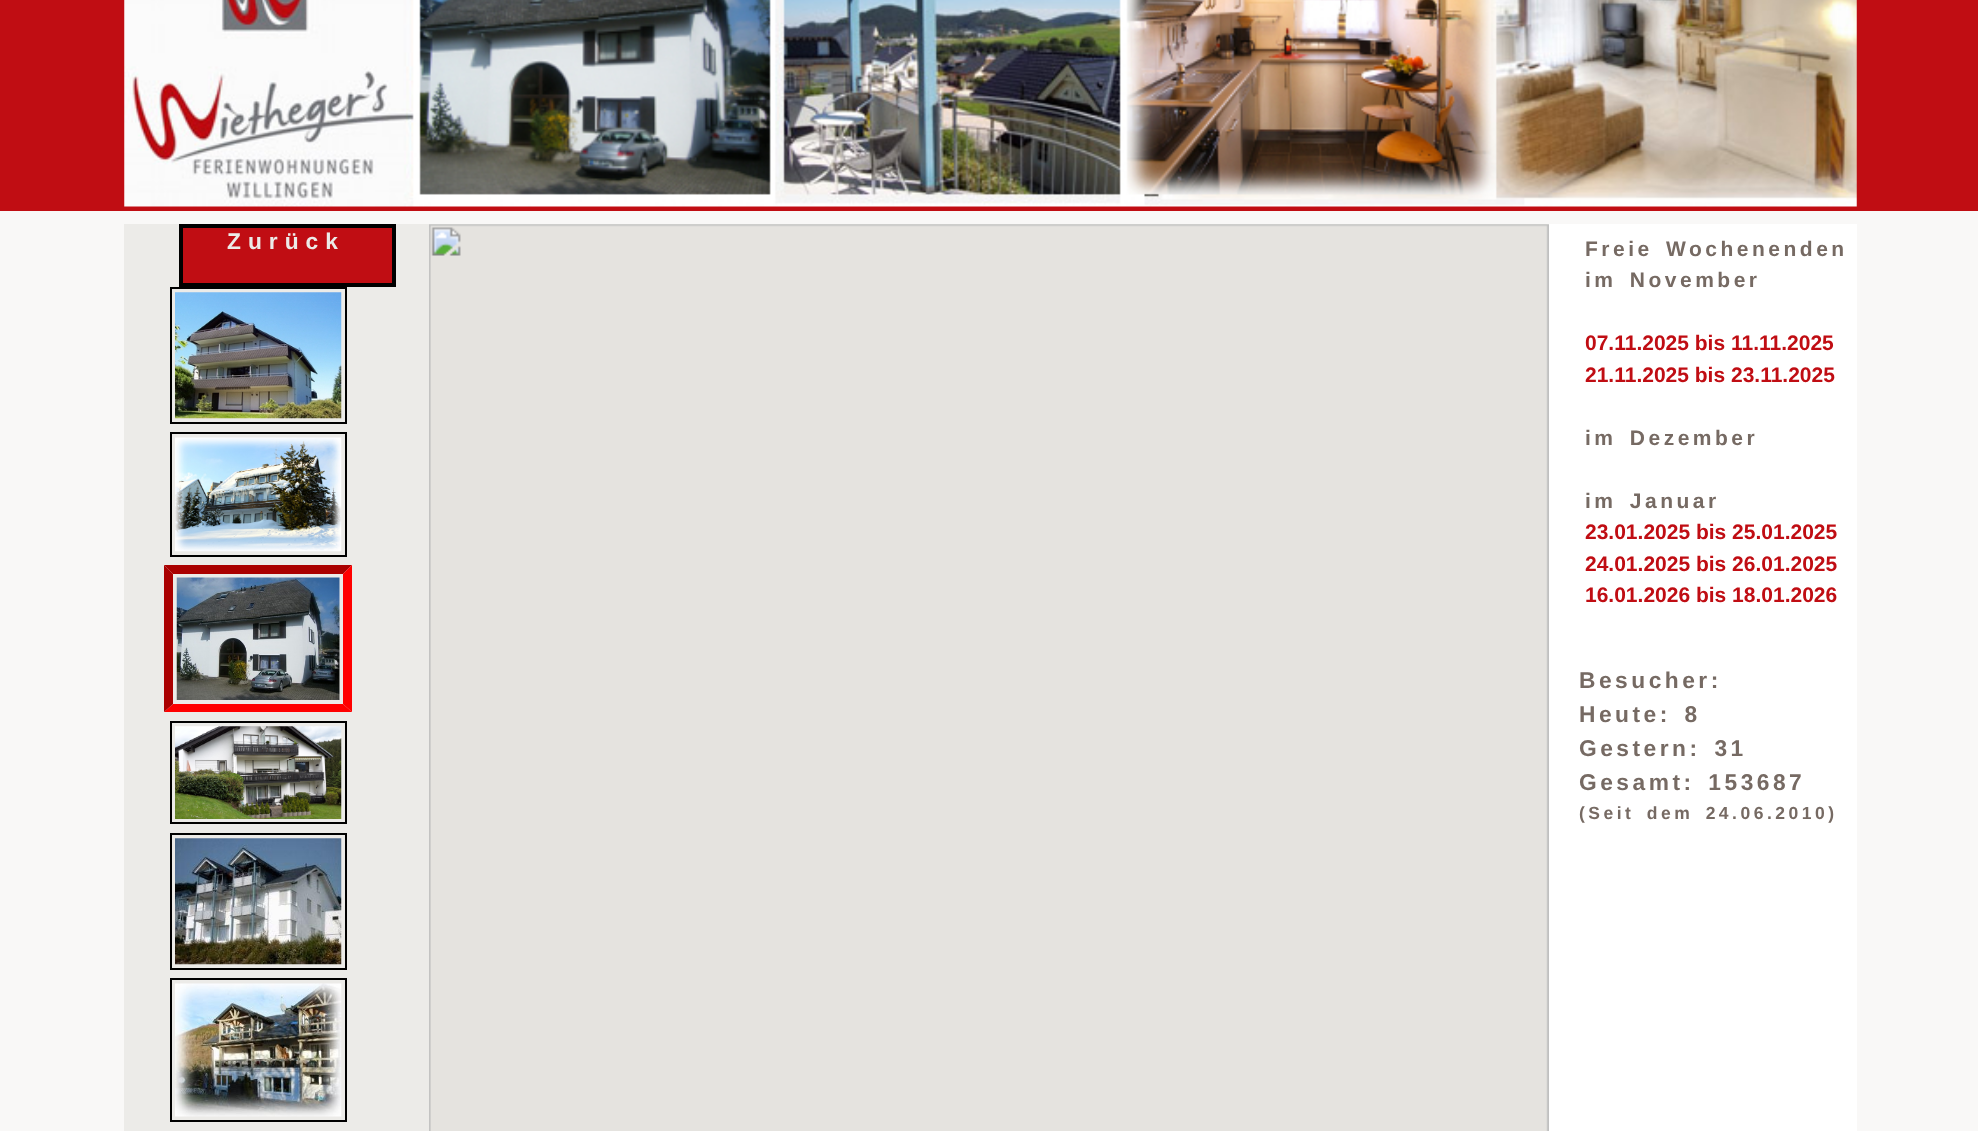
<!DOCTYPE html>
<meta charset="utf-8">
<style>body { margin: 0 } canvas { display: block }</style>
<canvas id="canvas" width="1978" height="1131"></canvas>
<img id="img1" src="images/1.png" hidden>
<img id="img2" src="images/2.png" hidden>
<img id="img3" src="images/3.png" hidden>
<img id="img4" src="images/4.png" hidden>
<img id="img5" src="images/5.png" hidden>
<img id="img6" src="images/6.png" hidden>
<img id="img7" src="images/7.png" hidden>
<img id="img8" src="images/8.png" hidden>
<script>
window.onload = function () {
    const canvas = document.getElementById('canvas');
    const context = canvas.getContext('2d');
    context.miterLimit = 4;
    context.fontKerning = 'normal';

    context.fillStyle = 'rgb(249, 248, 247)';
    context.fillRect(0, 0, 1978, 1131);
    context.fillStyle = 'rgb(192, 13, 19)';
    context.fillRect(0, 0, 1978, 211);
    context.drawImage(document.getElementById('img1'), 124, 0, 1733, 207);
    context.fillStyle = 'rgb(236, 235, 232)';
    context.fillRect(124, 224, 1425, 907);
    context.fillStyle = 'rgb(192, 13, 19)';
    context.beginPath();
    context.rect(181, 226, 213, 59);
    context.fill();
    context.strokeStyle = 'rgb(0, 0, 0)';
    context.lineWidth = 4;
    context.stroke();
    context.lineWidth = 2;
    context.strokeRect(171, 288, 175, 135);
    context.drawImage(document.getElementById('img2'), 175, 292, 167, 127);
    context.strokeRect(171, 433, 175, 123);
    context.drawImage(document.getElementById('img3'), 175, 437, 167, 115);
    context.fillStyle = 'rgb(170, 0, 0)';
    context.beginPath();
    context.moveTo(164, 565);
    context.lineTo(352, 565);
    context.lineTo(343, 574);
    context.lineTo(173, 574);
    context.closePath();
    context.fill();
    context.fillStyle = 'rgb(255, 0, 0)';
    context.beginPath();
    context.moveTo(352, 565);
    context.lineTo(352, 712);
    context.lineTo(343, 704);
    context.lineTo(343, 574);
    context.closePath();
    context.fill();
    context.beginPath();
    context.moveTo(352, 712);
    context.lineTo(164, 712);
    context.lineTo(173, 704);
    context.lineTo(343, 704);
    context.closePath();
    context.fill();
    context.fillStyle = 'rgb(170, 0, 0)';
    context.beginPath();
    context.moveTo(164, 712);
    context.lineTo(164, 565);
    context.lineTo(173, 574);
    context.lineTo(173, 704);
    context.closePath();
    context.fill();
    context.drawImage(document.getElementById('img4'), 176, 577, 164, 123);
    context.strokeRect(171, 722, 175, 101);
    context.drawImage(document.getElementById('img5'), 175, 726, 167, 93);
    context.drawImage(document.getElementById('img6'), 429, 224, 1120, 907);
    context.strokeRect(171, 834, 175, 135);
    context.drawImage(document.getElementById('img7'), 175, 838, 167, 127);
    context.strokeRect(171, 979, 175, 142);
    context.drawImage(document.getElementById('img8'), 175, 983, 167, 134);
    context.fillStyle = 'rgb(255, 255, 255)';
    context.fillRect(1549, 224, 308, 907);
    context.letterSpacing = '7px';
    context.font = 'bold 22.75px Liberation Sans';
    context.fillStyle = 'rgb(236, 235, 232)';
    context.fillText('Zurück', 227, 249);
    context.letterSpacing = '3.5px';
    context.wordSpacing = '4px';
    context.font = 'bold 21px Liberation Sans';
    context.fillStyle = 'rgb(118, 106, 99)';
    context.fillText('Freie Wochenenden', 1585, 256);
    context.fillText('im November', 1585, 287);
    context.letterSpacing = '0px';
    context.wordSpacing = '0px';
    context.fillStyle = 'rgb(192, 13, 19)';
    context.fillText('07.11.2025 bis 11.11.2025', 1585, 350);
    context.fillText('21.11.2025 bis 23.11.2025', 1585, 382);
    context.letterSpacing = '3.5px';
    context.wordSpacing = '4px';
    context.fillStyle = 'rgb(118, 106, 99)';
    context.fillText('im Dezember', 1585, 445);
    context.fillText('im Januar', 1585, 508);
    context.letterSpacing = '0px';
    context.wordSpacing = '0px';
    context.fillStyle = 'rgb(192, 13, 19)';
    context.fillText('23.01.2025 bis 25.01.2025', 1585, 539);
    context.fillText('24.01.2025 bis 26.01.2025', 1585, 571);
    context.fillText('16.01.2026 bis 18.01.2026', 1585, 602);
    context.letterSpacing = '3.5px';
    context.font = 'bold 22.75px Liberation Sans';
    context.fillStyle = 'rgb(118, 106, 99)';
    context.fillText('Besucher:', 1579, 688);
    context.wordSpacing = '4px';
    context.fillText('Heute: 8', 1579, 722);
    context.fillText('Gestern: 31', 1579, 756);
    context.fillText('Gesamt: 153687', 1579, 790);
    context.font = 'bold 17.5px Liberation Sans';
    context.fillText('(Seit dem 24.06.2010)', 1579, 819);
};
</script>
